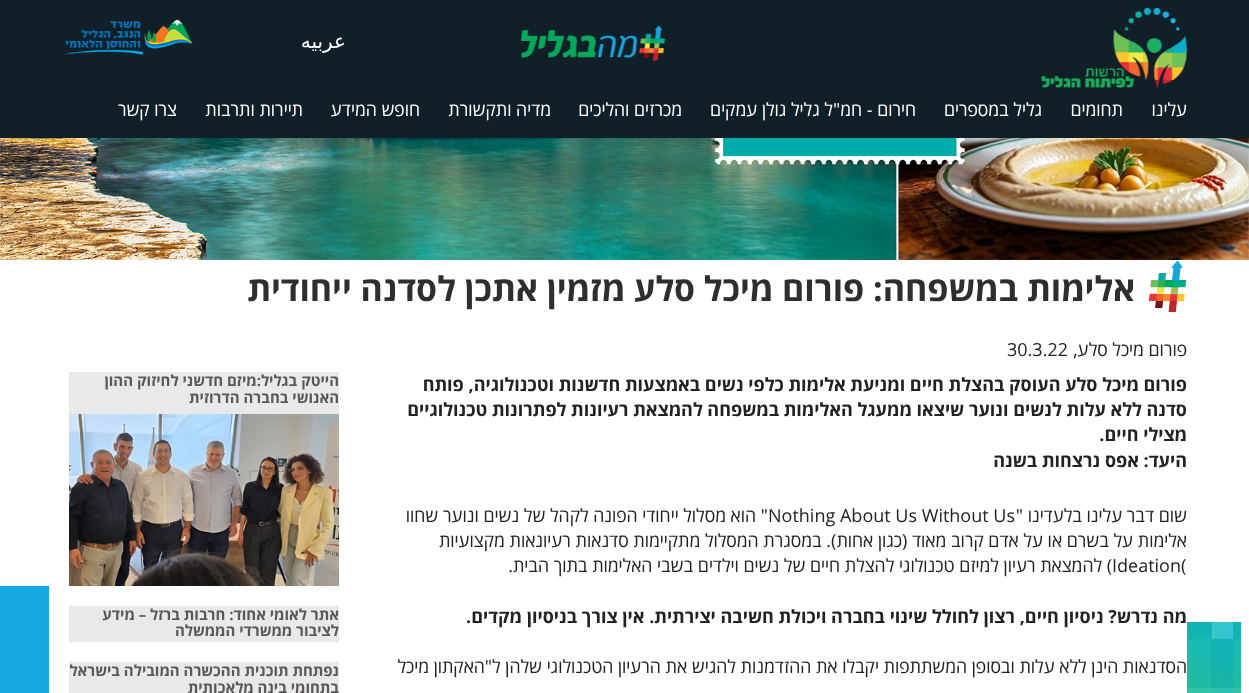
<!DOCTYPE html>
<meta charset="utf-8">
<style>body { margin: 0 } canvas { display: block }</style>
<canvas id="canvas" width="1249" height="693"></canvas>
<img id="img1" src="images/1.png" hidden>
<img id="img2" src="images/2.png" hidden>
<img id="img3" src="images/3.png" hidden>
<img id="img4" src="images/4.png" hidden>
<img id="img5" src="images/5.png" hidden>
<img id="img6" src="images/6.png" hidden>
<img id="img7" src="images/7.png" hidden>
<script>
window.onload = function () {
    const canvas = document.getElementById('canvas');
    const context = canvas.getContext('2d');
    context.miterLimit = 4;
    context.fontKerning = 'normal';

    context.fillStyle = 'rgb(255, 255, 255)';
    context.fillRect(0, 0, 1249, 693);
    context.fillStyle = 'rgb(17, 31, 41)';
    context.fillRect(0, 0, 1249, 138);
    context.drawImage(document.getElementById('img1'), 1041, 8, 146, 80);
    context.drawImage(document.getElementById('img2'), 520, 25, 146, 36);
    context.drawImage(document.getElementById('img3'), 64, 19, 129, 36);
    context.drawImage(document.getElementById('img4'), 0, 138, 1249, 122);
    context.drawImage(document.getElementById('img5'), 1149, 260, 38, 52);
    context.fillStyle = 'rgb(233, 233, 233)';
    context.fillRect(69, 372, 270, 42);
    context.drawImage(document.getElementById('img6'), 69, 414, 270, 172);
    context.fillRect(69, 606, 270, 36);
    context.fillRect(69, 662, 270, 31);
    context.drawImage(document.getElementById('img7'), 1187, 622, 54, 71);
    context.fillStyle = 'rgb(20, 168, 222)';
    context.fillRect(0, 586, 49, 107);
    context.direction = 'rtl';
    context.font = '20px DejaVu Sans';
    context.fillStyle = 'rgb(255, 255, 255)';
    context.fillText('عربيه', 346, 48);
    context.font = '18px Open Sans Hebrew';
    context.fillText('עלינו', 1187, 116);
    context.fillText('תחומים', 1123, 116);
    context.fillText('גליל במספרים', 1042, 116);
    context.fillText('חירום - חמ"ל גליל גולן עמקים', 916, 116);
    context.fillText('מכרזים והליכים', 682, 116);
    context.fillText('מדיה ותקשורת', 551, 116);
    context.fillText('חופש המידע', 420, 116);
    context.fillText('תיירות ותרבות', 303, 116);
    context.fillText('צרו קשר', 177, 116);
    context.font = 'bold 34px Open Sans Hebrew';
    context.fillStyle = 'rgb(46, 46, 46)';
    context.fillText('אלימות במשפחה: פורום מיכל סלע מזמין אתכן לסדנה ייחודית', 1135, 301);
    context.font = '18px Open Sans Hebrew';
    context.fillStyle = 'rgb(34, 34, 34)';
    context.fillText('פורום מיכל סלע,', 1187, 356);
    context.direction = 'ltr';
    context.fillText('30.3.22', 1007, 356);
    context.direction = 'rtl';
    context.font = 'bold 18px Open Sans Hebrew';
    context.fillText('פורום מיכל סלע העוסק בהצלת חיים ומניעת אלימות כלפי נשים באמצעות חדשנות וטכנולוגיה, פותח', 1187, 391);
    context.fillText('סדנה ללא עלות לנשים ונוער שיצאו ממעגל האלימות במשפחה להמצאת רעיונות לפתרונות טכנולוגיים', 1187, 416);
    context.fillText('מצילי חיים.', 1187, 441);
    context.fillText('היעד: אפס נרצחות בשנה', 1187, 467);
    context.font = '18px Open Sans Hebrew';
    context.fillText('שום דבר עלינו בלעדינו "', 1187, 522);
    context.direction = 'ltr';
    context.fillText('Nothing About Us Without Us', 768, 522);
    context.direction = 'rtl';
    context.fillText('" הוא מסלול ייחודי הפונה לקהל של נשים ונוער שחוו', 768, 522);
    context.fillText('אלימות על בשרם או על אדם קרוב מאוד (כגון אחות). במסגרת המסלול מתקיימות סדנאות רעיונאות מקצועיות', 1187, 547);
    context.direction = 'ltr';
    context.fillText('Ideation(', 1112, 572);
    context.direction = 'rtl';
    context.fillText(') להמצאת רעיון למיזם טכנולוגי להצלת חיים של נשים וילדים בשבי האלימות בתוך הבית.', 1112, 572);
    context.font = 'bold 18px Open Sans Hebrew';
    context.fillText('מה נדרש? ניסיון חיים, רצון לחולל שינוי בחברה ויכולת חשיבה יצירתית. אין צורך בניסיון מקדים.', 1187, 623);
    context.font = '18px Open Sans Hebrew';
    context.fillText('הסדנאות הינן ללא עלות ובסופן המשתתפות יקבלו את ההזדמנות להגיש את הרעיון הטכנולוגי שלהן ל"האקתון מיכל', 1187, 673);
    context.font = 'bold 15px Open Sans Hebrew';
    context.fillStyle = 'rgb(93, 88, 88)';
    context.fillText('הייטק בגליל:מיזם חדשני לחיזוק ההון', 339, 386);
    context.fillText('האנושי בחברה הדרוזית', 339, 403);
    context.fillText('אתר לאומי אחוד: חרבות ברזל – מידע', 339, 620);
    context.fillText('לציבור ממשרדי הממשלה', 339, 636);
    context.fillText('נפתחת תוכנית ההכשרה המובילה בישראל', 339, 676);
    context.fillText('בתחומי בינה מלאכותית', 339, 693);
};
</script>
